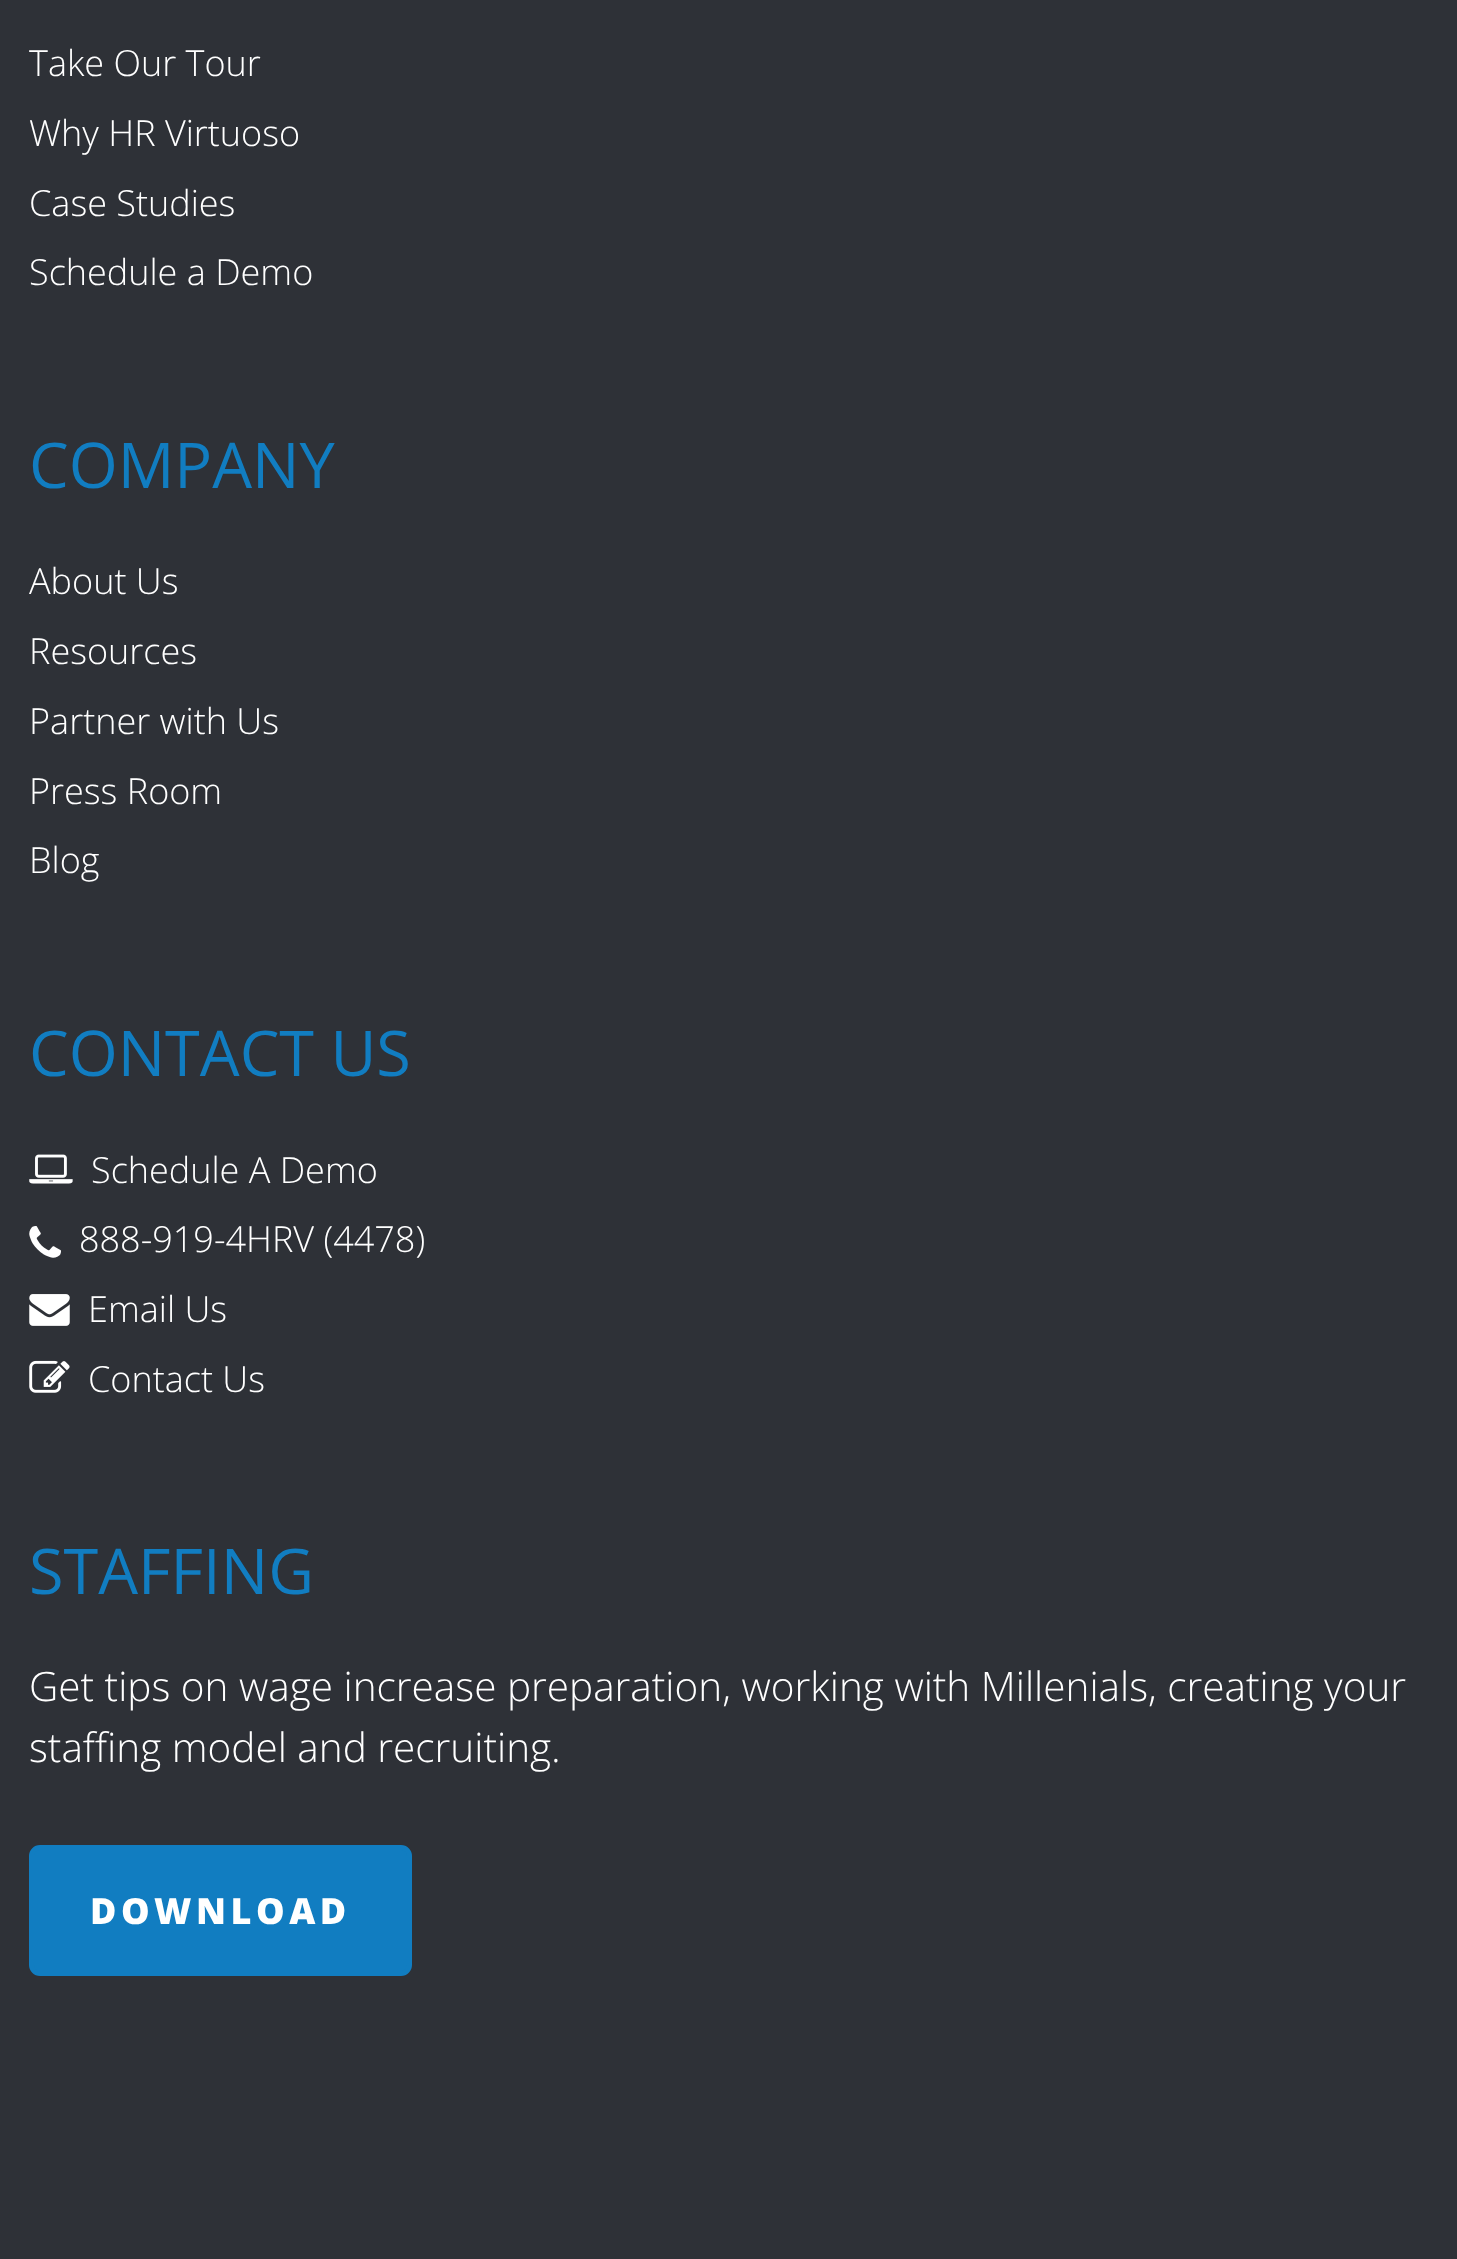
<!DOCTYPE html>
<meta charset="utf-8">
<style>body { margin: 0 } canvas { display: block }</style>
<canvas id="canvas" width="1457" height="2259"></canvas>
<img id="img1" src="images/1.png" hidden>
<img id="img2" src="images/2.png" hidden>
<img id="img3" src="images/3.png" hidden>
<img id="img4" src="images/4.png" hidden>
<script>
window.onload = function () {
    const canvas = document.getElementById('canvas');
    const context = canvas.getContext('2d');
    context.miterLimit = 4;
    context.fontKerning = 'normal';

    context.fillStyle = 'rgb(46, 49, 55)';
    context.fillRect(0, 0, 1457, 2259);
    context.drawImage(document.getElementById('img1'), 29, 1154, 44, 30);
    context.drawImage(document.getElementById('img2'), 29, 1226, 32, 32);
    context.drawImage(document.getElementById('img3'), 29, 1294, 41, 32);
    context.drawImage(document.getElementById('img4'), 29, 1360, 41, 33);
    context.fillStyle = 'rgb(17, 125, 193)';
    context.beginPath();
    context.roundRect(31.5, 1847.5, 378, 126, 8.5);
    context.fill();
    context.strokeStyle = 'rgb(17, 125, 193)';
    context.lineWidth = 5;
    context.stroke();
    context.font = '300 36px Open Sans';
    context.fillStyle = 'rgb(255, 255, 255)';
    context.fillText('Take Our Tour', 29, 76);
    context.fillText('Why HR Virtuoso', 29, 146);
    context.fillText('Case Studies', 29, 216);
    context.fillText('Schedule a Demo', 29, 285);
    context.font = '63px Open Sans';
    context.fillStyle = 'rgb(17, 125, 193)';
    context.fillText('COMPANY', 29, 488);
    context.font = '300 36px Open Sans';
    context.fillStyle = 'rgb(255, 255, 255)';
    context.fillText('About Us', 29, 594);
    context.fillText('Resources', 29, 664);
    context.fillText('Partner with Us', 29, 734);
    context.fillText('Press Room', 29, 804);
    context.fillText('Blog', 29, 873);
    context.font = '63px Open Sans';
    context.fillStyle = 'rgb(17, 125, 193)';
    context.fillText('CONTACT US', 29, 1076);
    context.font = '300 36px Open Sans';
    context.fillStyle = 'rgb(255, 255, 255)';
    context.fillText('Schedule A Demo', 91, 1183);
    context.fillText('888-919-4HRV (4478)', 79, 1252);
    context.fillText('Email Us', 88, 1322);
    context.fillText('Contact Us', 88, 1392);
    context.font = '63px Open Sans';
    context.fillStyle = 'rgb(17, 125, 193)';
    context.fillText('STAFFING', 29, 1594);
    context.font = '300 40.5px Open Sans';
    context.fillStyle = 'rgb(255, 255, 255)';
    context.fillText('Get tips on wage increase preparation, working with Millenials, creating your', 29, 1701);
    context.fillText('staffing model and recruiting.', 29, 1762);
    context.letterSpacing = '4.5px';
    context.font = '800 36px Open Sans';
    context.fillText('DOWNLOAD', 90, 1924);
};
</script>
